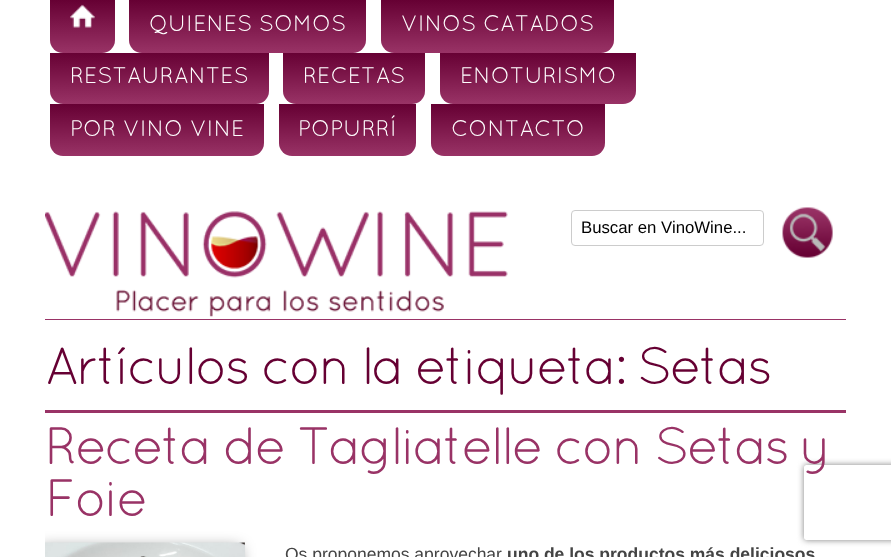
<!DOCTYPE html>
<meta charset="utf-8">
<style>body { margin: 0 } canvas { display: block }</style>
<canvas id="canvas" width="891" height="557"></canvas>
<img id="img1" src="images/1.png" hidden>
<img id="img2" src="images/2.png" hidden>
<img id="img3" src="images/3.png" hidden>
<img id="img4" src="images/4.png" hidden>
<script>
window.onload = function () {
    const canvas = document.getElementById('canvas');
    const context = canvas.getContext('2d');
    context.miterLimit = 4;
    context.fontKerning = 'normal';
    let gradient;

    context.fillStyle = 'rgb(255, 255, 255)';
    context.fillRect(0, 0, 891, 557);
    context.fillStyle = 'rgb(153, 51, 102)';
    context.fillRect(45, 319, 801, 1);
    gradient = context.createLinearGradient(83, 0, 83, 53);
    gradient.addColorStop(0, 'rgb(102, 0, 51)');
    gradient.addColorStop(1, 'rgb(153, 51, 102)');
    context.fillStyle = gradient;
    context.beginPath();
    context.roundRect(50, 0, 65, 53, [0, 0, 13, 13]);
    context.fill();
    context.drawImage(document.getElementById('img1'), 70, 4, 25, 24);
    gradient = context.createLinearGradient(248, 0, 248, 53);
    gradient.addColorStop(0, 'rgb(102, 0, 51)');
    gradient.addColorStop(1, 'rgb(153, 51, 102)');
    context.fillStyle = gradient;
    context.beginPath();
    context.roundRect(129, 0, 237, 53, [0, 0, 13, 13]);
    context.fill();
    gradient = context.createLinearGradient(498, 0, 498, 53);
    gradient.addColorStop(0, 'rgb(102, 0, 51)');
    gradient.addColorStop(1, 'rgb(153, 51, 102)');
    context.fillStyle = gradient;
    context.beginPath();
    context.roundRect(381, 0, 233, 53, [0, 0, 13, 13]);
    context.fill();
    gradient = context.createLinearGradient(159, 52, 159, 104);
    gradient.addColorStop(0, 'rgb(102, 0, 51)');
    gradient.addColorStop(1, 'rgb(153, 51, 102)');
    context.fillStyle = gradient;
    context.beginPath();
    context.roundRect(50, 53, 219, 51, [0, 0, 13, 13]);
    context.fill();
    gradient = context.createLinearGradient(354, 52, 354, 104);
    gradient.addColorStop(0, 'rgb(102, 0, 51)');
    gradient.addColorStop(1, 'rgb(153, 51, 102)');
    context.fillStyle = gradient;
    context.beginPath();
    context.roundRect(283, 53, 142, 51, [0, 0, 13, 13]);
    context.fill();
    gradient = context.createLinearGradient(538, 52, 538, 104);
    gradient.addColorStop(0, 'rgb(102, 0, 51)');
    gradient.addColorStop(1, 'rgb(153, 51, 102)');
    context.fillStyle = gradient;
    context.beginPath();
    context.roundRect(440, 53, 196, 51, [0, 0, 13, 13]);
    context.fill();
    gradient = context.createLinearGradient(157, 104, 157, 156);
    gradient.addColorStop(0, 'rgb(102, 0, 51)');
    gradient.addColorStop(1, 'rgb(153, 51, 102)');
    context.fillStyle = gradient;
    context.beginPath();
    context.roundRect(50, 104, 214, 52, [0, 0, 13, 13]);
    context.fill();
    gradient = context.createLinearGradient(348, 104, 348, 156);
    gradient.addColorStop(0, 'rgb(102, 0, 51)');
    gradient.addColorStop(1, 'rgb(153, 51, 102)');
    context.fillStyle = gradient;
    context.beginPath();
    context.roundRect(279, 104, 137, 52, [0, 0, 13, 13]);
    context.fill();
    gradient = context.createLinearGradient(518, 104, 518, 156);
    gradient.addColorStop(0, 'rgb(102, 0, 51)');
    gradient.addColorStop(1, 'rgb(153, 51, 102)');
    context.fillStyle = gradient;
    context.beginPath();
    context.roundRect(431, 104, 174, 52, [0, 0, 13, 13]);
    context.fill();
    context.drawImage(document.getElementById('img2'), 45, 211, 463, 106);
    context.beginPath();
    context.roundRect(571.5, 210.5, 192, 35, 3.5);
    context.strokeStyle = 'rgb(204, 204, 204)';
    context.stroke();
    context.drawImage(document.getElementById('img3'), 782, 207, 51, 51);
    context.fillStyle = 'rgb(153, 51, 102)';
    context.fillRect(45, 410, 801, 3);
    context.save();
    context.beginPath();
    context.rect(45, 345, 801, 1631);
    context.clip();
    context.fillStyle = 'rgba(0, 0, 0, 0.5)';
    context.filter = 'blur(7.5px)';
    context.beginPath();
    context.rect(40, 548, 200, 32);
    context.fill();
    context.filter = 'none';
    context.restore();
    context.drawImage(document.getElementById('img4'), 45, 542, 200, 15);
    context.save();
    context.beginPath();
    context.moveTo(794, 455);
    context.lineTo(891, 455);
    context.lineTo(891, 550);
    context.lineTo(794, 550);
    context.closePath();
    context.moveTo(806.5, 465);
    context.lineTo(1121.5, 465);
    context.bezierCurveTo(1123, 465, 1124, 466, 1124, 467.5);
    context.lineTo(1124, 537.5);
    context.bezierCurveTo(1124, 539, 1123, 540, 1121.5, 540);
    context.lineTo(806.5, 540);
    context.bezierCurveTo(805, 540, 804, 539, 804, 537.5);
    context.lineTo(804, 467.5);
    context.bezierCurveTo(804, 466, 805, 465, 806.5, 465);
    context.closePath();
    context.clip('evenodd');
    context.fillStyle = 'rgb(128, 128, 128)';
    context.filter = 'blur(3px)';
    context.beginPath();
    context.roundRect(804, 465, 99, 75, 2.5);
    context.fill();
    context.filter = 'none';
    context.restore();
    context.font = '22.5px Quicksand';
    context.fillStyle = 'rgb(255, 255, 255)';
    context.fillText('QUIENES SOMOS', 149, 31);
    context.fillText('VINOS CATADOS', 401, 31);
    context.fillText('RESTAURANTES', 70, 83);
    context.fillText('RECETAS', 303, 83);
    context.fillText('ENOTURISMO', 460, 83);
    context.fillText('POR VINO VINE', 70, 136);
    context.fillText('POPURRÍ', 298, 136);
    context.fillText('CONTACTO', 451, 136);
    context.font = '16.75px Liberation Sans';
    context.fillStyle = 'rgb(0, 0, 0)';
    context.fillText('Buscar en VinoWine...', 581, 233);
    context.letterSpacing = '-2.6px';
    context.font = '52.5px Quicksand';
    context.fillStyle = 'rgb(102, 0, 51)';
    context.fillText('Artículos con la etiqueta: Setas', 45, 384);
    context.fillStyle = 'rgb(153, 51, 102)';
    context.fillText('Receta de Tagliatelle con Setas y', 45, 464);
    context.fillText('Foie', 45, 516);
    context.letterSpacing = '0px';
    context.font = '17.5px Liberation Sans';
    context.fillStyle = 'rgb(68, 68, 68)';
    context.fillText('Os proponemos aprovechar', 285, 560);
    context.font = 'bold 17.5px Liberation Sans';
    context.fillText('uno de los productos más deliciosos', 507, 560);
};
</script>
